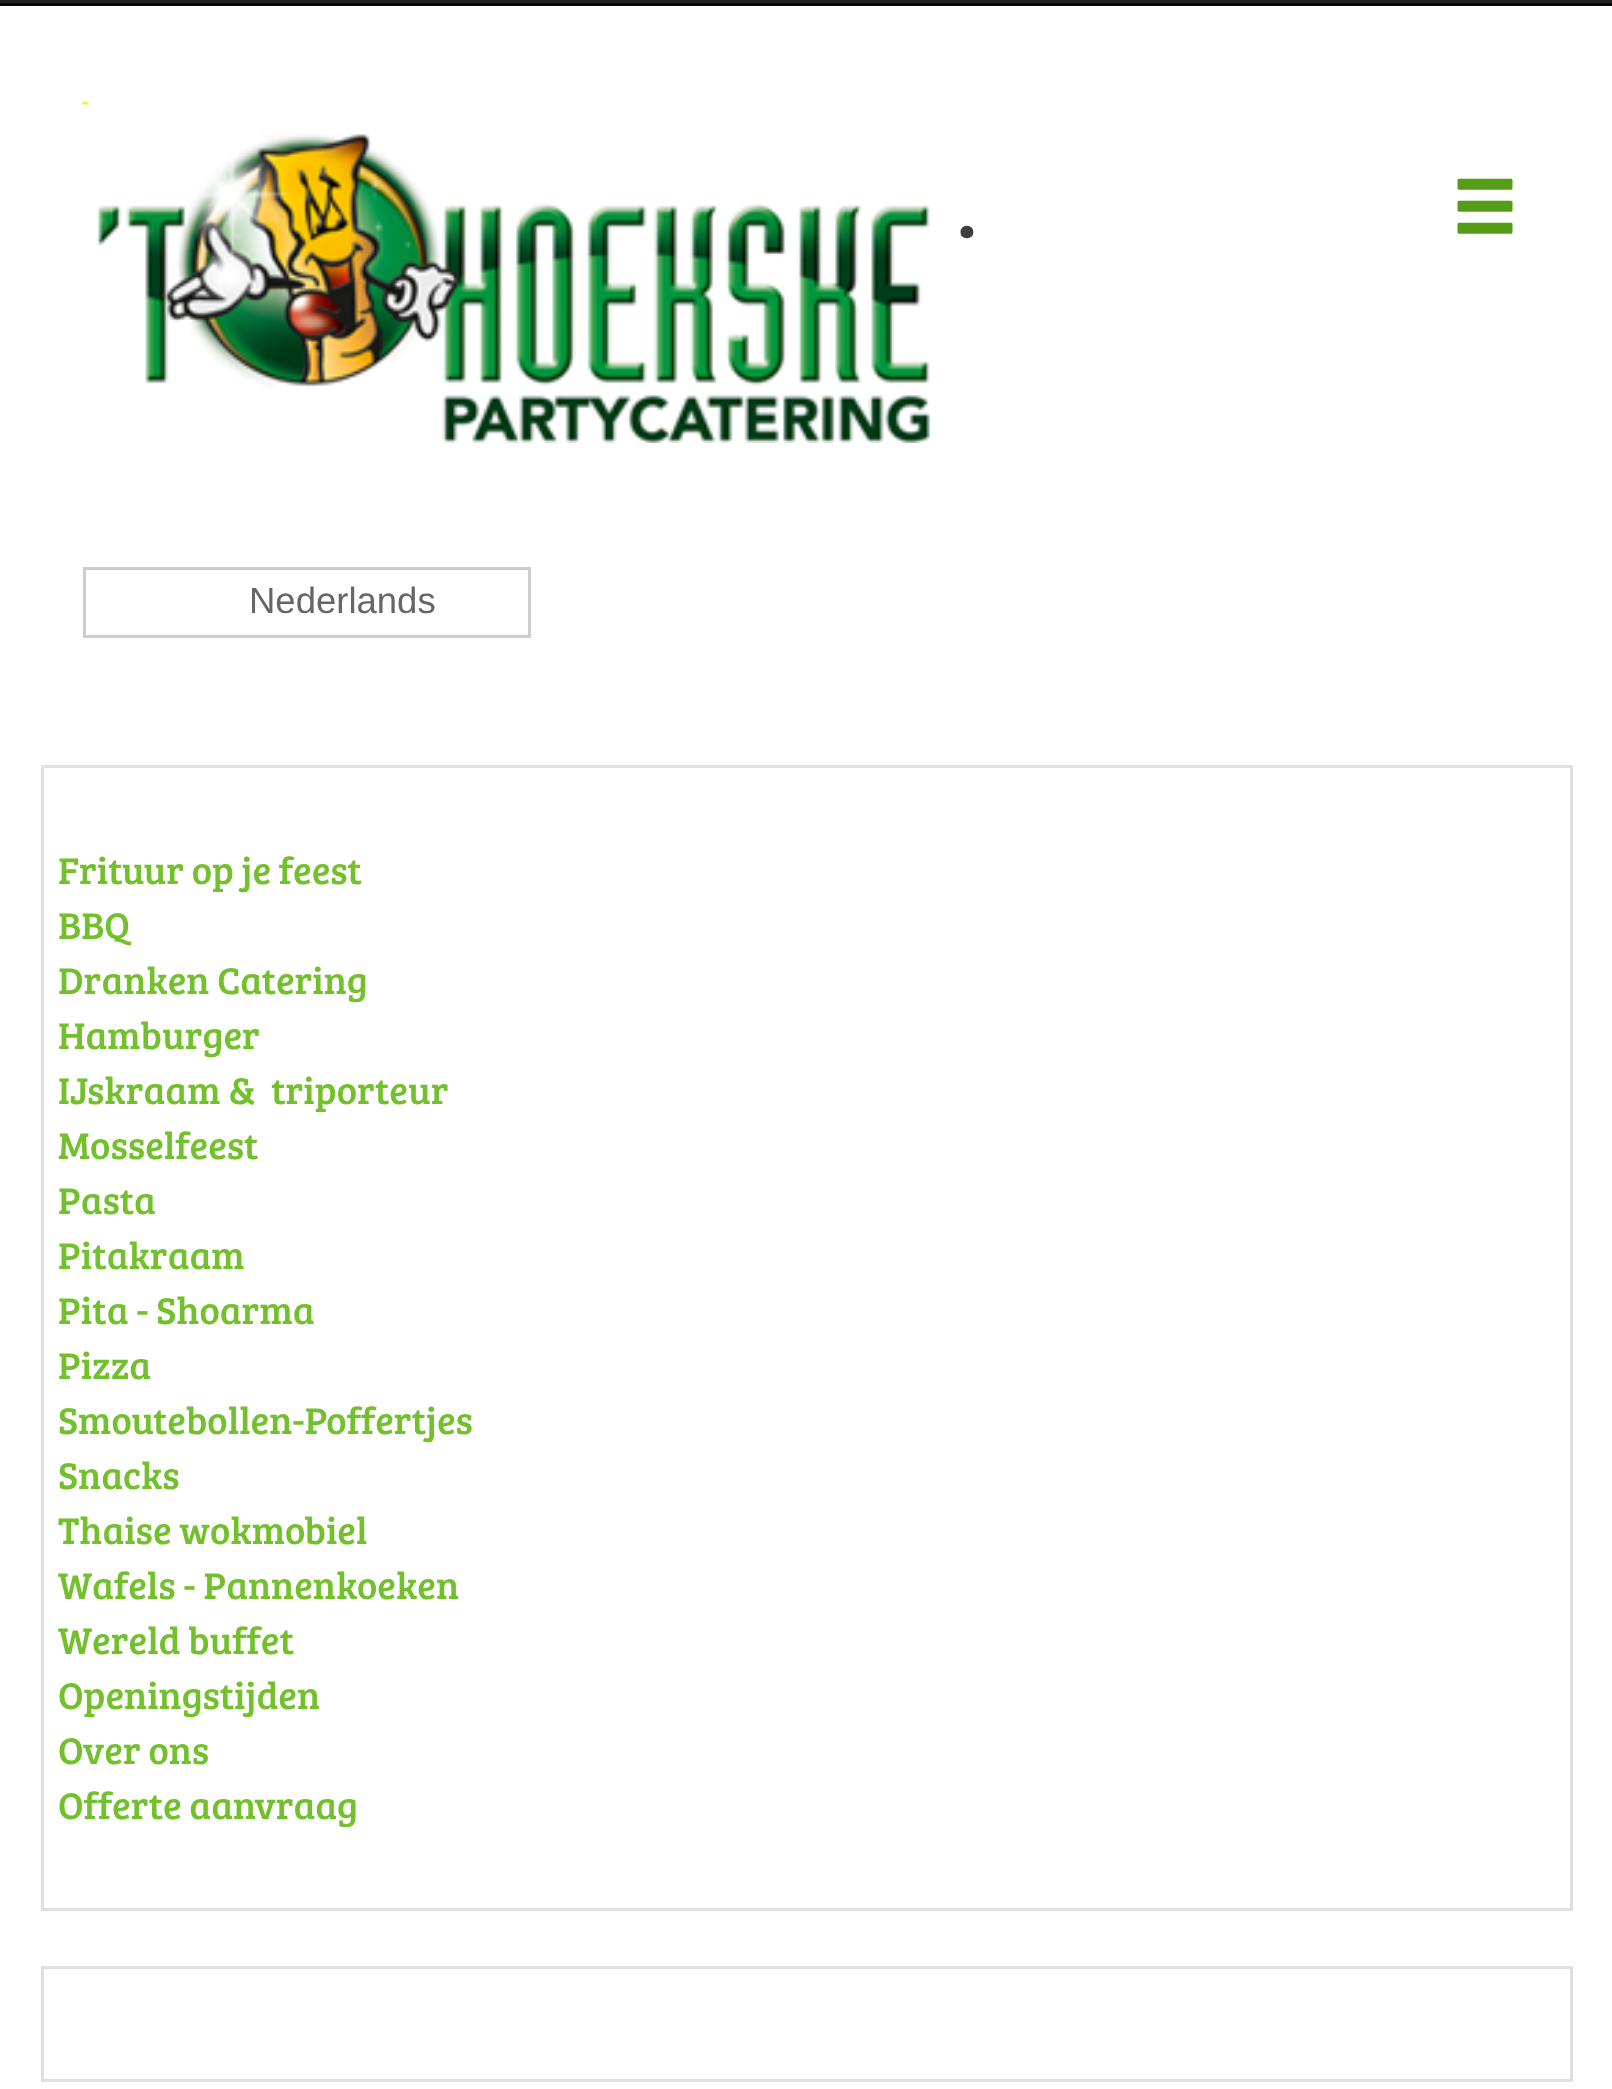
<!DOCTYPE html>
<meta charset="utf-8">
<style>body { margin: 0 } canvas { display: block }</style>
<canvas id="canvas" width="1612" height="2089"></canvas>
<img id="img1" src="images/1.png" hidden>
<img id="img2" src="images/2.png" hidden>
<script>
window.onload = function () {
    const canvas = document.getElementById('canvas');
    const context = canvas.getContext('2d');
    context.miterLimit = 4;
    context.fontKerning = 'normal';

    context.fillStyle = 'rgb(255, 255, 255)';
    context.fillRect(0, 0, 1612, 2089);
    context.fillStyle = 'rgb(34, 34, 34)';
    context.fillRect(0, 0, 1612, 3);
    context.fillStyle = 'rgb(8, 8, 8)';
    context.fillRect(0, 3, 1612, 3);
    context.drawImage(document.getElementById('img1'), 82, 101, 848, 342);
    context.drawImage(document.getElementById('img2'), 1457, 178, 56, 56);
    context.strokeStyle = 'rgb(204, 204, 204)';
    context.lineWidth = 3;
    context.strokeRect(84.5, 568.5, 445, 68);
    context.strokeStyle = 'rgb(224, 224, 224)';
    context.strokeRect(42.5, 766.5, 1529, 1143);
    context.strokeRect(42.5, 1967.5, 1529, 113);
    context.font = '88px Bree Serif';
    context.fillStyle = 'rgb(62, 62, 62)';
    context.fillText('.', 957, 237);
    context.font = '36.5px Liberation Sans';
    context.fillStyle = 'rgb(102, 102, 102)';
    context.fillText('Nederlands', 249, 613);
    context.font = '38.5px Bree Serif';
    context.fillStyle = 'rgb(114, 192, 44)';
    context.fillText('Frituur op je feest', 58, 884);
    context.fillText('BBQ', 58, 939);
    context.fillText('Dranken Catering', 58, 994);
    context.fillText('Hamburger', 58, 1049);
    context.fillText('IJskraam &  triporteur', 58, 1104);
    context.fillText('Mosselfeest', 58, 1159);
    context.fillText('Pasta', 58, 1214);
    context.fillText('Pitakraam', 58, 1269);
    context.fillText('Pita - Shoarma', 58, 1324);
    context.fillText('Pizza', 58, 1379);
    context.fillText('Smoutebollen-Poffertjes', 58, 1434);
    context.fillText('Snacks', 58, 1489);
    context.fillText('Thaise wokmobiel', 58, 1544);
    context.fillText('Wafels - Pannenkoeken', 58, 1599);
    context.fillText('Wereld buffet', 58, 1654);
    context.fillText('Openingstijden', 58, 1709);
    context.fillText('Over ons', 58, 1764);
    context.fillText('Offerte aanvraag', 58, 1819);
};
</script>
